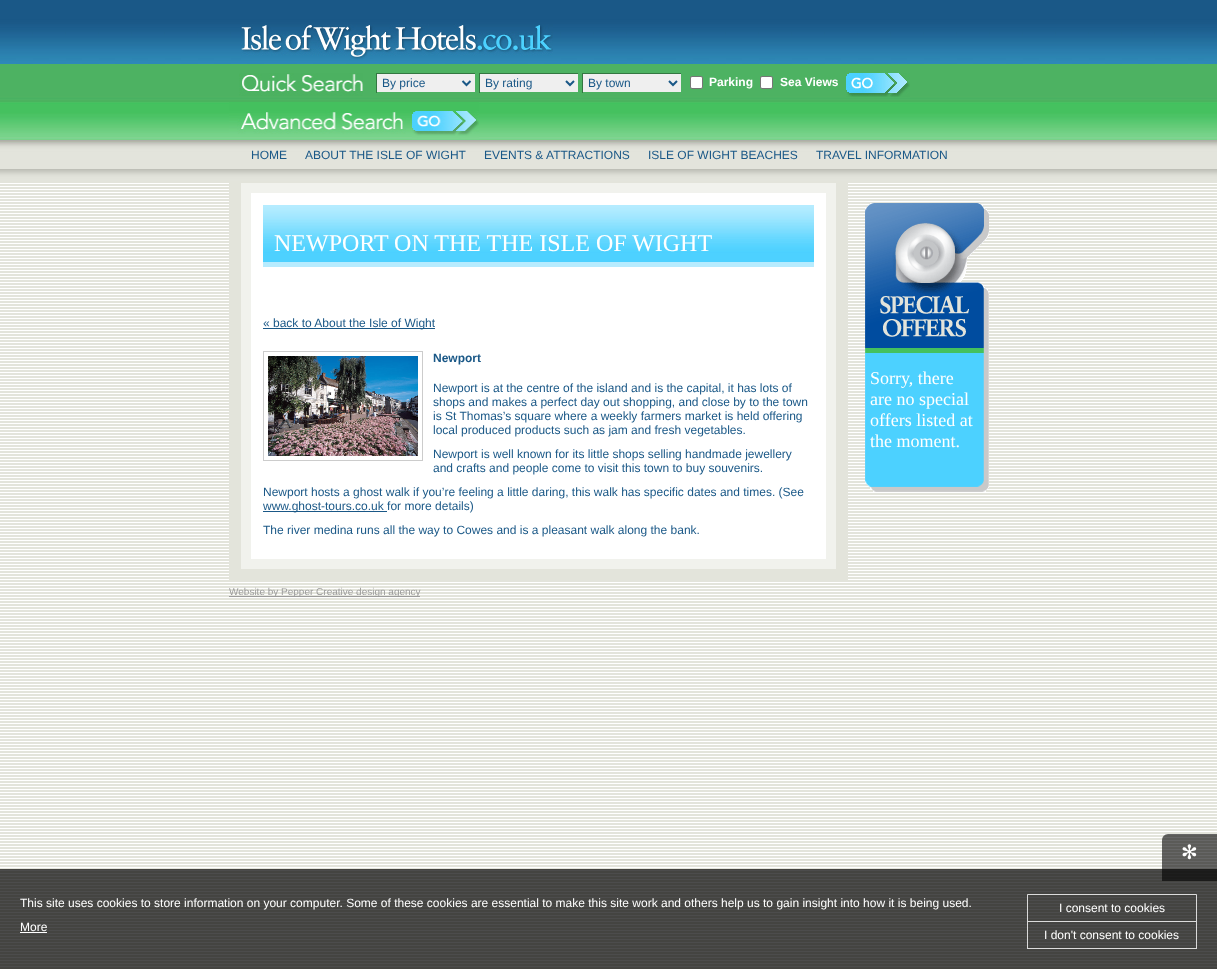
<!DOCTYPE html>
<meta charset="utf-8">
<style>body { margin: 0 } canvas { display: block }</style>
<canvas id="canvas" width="1217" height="969"></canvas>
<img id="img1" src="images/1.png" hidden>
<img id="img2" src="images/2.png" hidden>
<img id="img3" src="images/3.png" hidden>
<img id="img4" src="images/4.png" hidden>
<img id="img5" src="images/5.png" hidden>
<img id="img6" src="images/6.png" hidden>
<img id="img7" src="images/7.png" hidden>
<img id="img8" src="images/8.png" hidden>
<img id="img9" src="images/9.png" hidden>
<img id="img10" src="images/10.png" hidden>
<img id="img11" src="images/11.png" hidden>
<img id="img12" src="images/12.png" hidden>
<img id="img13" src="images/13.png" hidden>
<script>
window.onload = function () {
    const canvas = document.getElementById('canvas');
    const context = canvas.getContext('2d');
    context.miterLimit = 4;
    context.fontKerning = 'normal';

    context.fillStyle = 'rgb(227, 228, 219)';
    context.fillRect(0, 0, 1217, 969);
    context.drawImage(document.getElementById('img1'), 0, 183, 1217, 784);
    context.drawImage(document.getElementById('img2'), 0, 0, 1217, 169);
    context.drawImage(document.getElementById('img3'), 241, 24, 312, 36);
    context.drawImage(document.getElementById('img4'), 239, 73, 124, 23);
    context.fillStyle = 'rgb(239, 239, 239)';
    context.fillRect(377, 74, 98, 18);
    context.fillStyle = 'rgb(51, 119, 65)';
    context.fillRect(376, 73, 100, 1);
    context.fillStyle = 'rgb(76, 178, 97)';
    context.fillRect(475, 73, 1, 1);
    context.fillStyle = 'rgb(51, 119, 65)';
    context.fillRect(376, 73, 1, 20);
    context.beginPath();
    context.moveTo(462.5, 81);
    context.lineTo(466.5, 85);
    context.lineTo(470.5, 81);
    context.strokeStyle = 'rgb(26, 88, 135)';
    context.lineWidth = 2;
    context.stroke();
    context.fillStyle = 'rgb(239, 239, 239)';
    context.fillRect(480, 74, 98, 18);
    context.fillStyle = 'rgb(51, 119, 65)';
    context.fillRect(479, 73, 100, 1);
    context.fillStyle = 'rgb(76, 178, 97)';
    context.fillRect(578, 73, 1, 1);
    context.fillStyle = 'rgb(51, 119, 65)';
    context.fillRect(479, 73, 1, 20);
    context.beginPath();
    context.moveTo(566, 81);
    context.lineTo(570, 85);
    context.lineTo(574, 81);
    context.stroke();
    context.fillStyle = 'rgb(239, 239, 239)';
    context.fillRect(583, 74, 98, 18);
    context.fillStyle = 'rgb(51, 119, 65)';
    context.fillRect(582, 73, 100, 1);
    context.fillStyle = 'rgb(76, 178, 97)';
    context.fillRect(681, 73, 1, 1);
    context.fillStyle = 'rgb(51, 119, 65)';
    context.fillRect(582, 73, 1, 20);
    context.beginPath();
    context.moveTo(669, 81);
    context.lineTo(673, 85);
    context.lineTo(677, 81);
    context.stroke();
    context.fillStyle = 'rgb(255, 255, 255)';
    context.beginPath();
    context.roundRect(690.5, 76.5, 12, 12, 1.5);
    context.fill();
    context.strokeStyle = 'rgb(118, 118, 118)';
    context.lineWidth = 1;
    context.stroke();
    context.beginPath();
    context.roundRect(760.5, 76.5, 12, 12, 1.5);
    context.fill();
    context.stroke();
    context.drawImage(document.getElementById('img5'), 846, 73, 64, 24);
    context.drawImage(document.getElementById('img6'), 229, 102, 183, 32);
    context.drawImage(document.getElementById('img7'), 412, 102, 67, 38);
    context.drawImage(document.getElementById('img8'), 0, 169, 1217, 12);
    context.fillStyle = 'rgb(227, 228, 219)';
    context.fillRect(229, 183, 619, 397);
    context.fillStyle = 'rgb(255, 255, 255)';
    context.beginPath();
    context.rect(246, 188, 585, 376);
    context.fill();
    context.strokeStyle = 'rgb(241, 242, 237)';
    context.lineWidth = 10;
    context.stroke();
    context.drawImage(document.getElementById('img9'), 263, 205, 551, 62);
    context.fillStyle = 'rgb(26, 88, 135)';
    context.fillRect(263, 328, 172, 1);
    context.strokeStyle = 'rgb(204, 204, 204)';
    context.lineWidth = 1;
    context.strokeRect(263.5, 351.5, 159, 109);
    context.drawImage(document.getElementById('img10'), 268, 356, 150, 100);
    context.fillRect(263, 511, 124, 1);
    context.drawImage(document.getElementById('img11'), 865, 203, 124, 150);
    context.drawImage(document.getElementById('img12'), 865, 353, 124, 114);
    context.drawImage(document.getElementById('img13'), 865, 467, 124, 25);
    context.fillStyle = 'rgb(156, 156, 156)';
    context.fillRect(229, 596, 191, 1);
    context.fillStyle = 'rgba(0, 0, 0, 0.7)';
    context.fillRect(0, 869, 1217, 100);
    context.fillStyle = 'rgba(0, 0, 0, 0.6)';
    context.beginPath();
    context.roundRect(1162, 834, 55, 47, [6, 0, 0, 0]);
    context.fill();
    context.fillStyle = 'rgb(255, 255, 255)';
    context.fillRect(20, 932, 27, 1);
    context.fillStyle = 'rgb(219, 219, 219)';
    context.beginPath();
    context.moveTo(1027, 894);
    context.lineTo(1197, 894);
    context.lineTo(1196, 895);
    context.lineTo(1028, 895);
    context.closePath();
    context.fill();
    context.fillStyle = 'rgba(255, 255, 255, 0.8)';
    context.beginPath();
    context.moveTo(1197, 894);
    context.lineTo(1197, 921);
    context.lineTo(1196, 921);
    context.lineTo(1196, 895);
    context.closePath();
    context.fill();
    context.beginPath();
    context.moveTo(1027, 921);
    context.lineTo(1027, 894);
    context.lineTo(1028, 895);
    context.lineTo(1028, 921);
    context.closePath();
    context.fill();
    context.strokeStyle = 'rgba(255, 255, 255, 0.8)';
    context.strokeRect(1027.5, 921.5, 169, 27);
    context.font = '12px Liberation Sans';
    context.fillStyle = 'rgb(26, 88, 135)';
    context.fillText('By price', 382, 87);
    context.fillText('By rating', 485, 87);
    context.fillText('By town', 588, 87);
    context.font = 'bold 12px Liberation Sans';
    context.fillStyle = 'rgb(255, 255, 255)';
    context.fillText('Parking', 709, 86);
    context.fillText('Sea Views', 780, 86);
    context.font = '12px Liberation Sans';
    context.fillStyle = 'rgb(26, 88, 135)';
    context.fillText('HOME', 251, 159);
    context.fillText('ABOUT THE ISLE OF WIGHT', 305, 159);
    context.fillText('EVENTS & ATTRACTIONS', 484, 159);
    context.fillText('ISLE OF WIGHT BEACHES', 648, 159);
    context.fillText('TRAVEL INFORMATION', 816, 159);
    context.font = '24px Liberation Serif';
    context.fillStyle = 'rgb(255, 255, 255)';
    context.fillText('NEWPORT ON THE THE ISLE OF WIGHT', 274, 251);
    context.font = '12px Liberation Sans';
    context.fillStyle = 'rgb(26, 88, 135)';
    context.fillText('« back to About the Isle of Wight', 263, 327);
    context.font = 'bold 12px Liberation Sans';
    context.fillText('Newport', 433, 362);
    context.font = '12px Liberation Sans';
    context.fillText('Newport is at the centre of the island and is the capital, it has lots of', 433, 392);
    context.fillText('shops and makes a perfect day out shopping, and close by to the town', 433, 406);
    context.fillText('is St Thomas’s square where a weekly farmers market is held offering', 433, 420);
    context.fillText('local produced products such as jam and fresh vegetables.', 433, 434);
    context.fillText('Newport is well known for its little shops selling handmade jewellery', 433, 458);
    context.fillText('and crafts and people come to visit this town to buy souvenirs.', 433, 472);
    context.fillText('Newport hosts a ghost walk if you’re feeling a little daring, this walk has specific dates and times. (See', 263, 496);
    context.fillText('www.ghost-tours.co.uk for more details)', 263, 510);
    context.fillText('The river medina runs all the way to Cowes and is a pleasant walk along the bank.', 263, 534);
    context.font = '18px Liberation Serif';
    context.fillStyle = 'rgb(255, 255, 255)';
    context.fillText('Sorry, there', 870, 384);
    context.fillText('are no special', 870, 405);
    context.fillText('offers listed at', 870, 426);
    context.fillText('the moment.', 870, 447);
    context.font = '10px Liberation Sans';
    context.fillStyle = 'rgb(156, 156, 156)';
    context.fillText('Website by Pepper Creative design agency', 229, 595);
    context.letterSpacing = '1px';
    context.font = '20px DejaVu Sans';
    context.fillStyle = 'rgb(255, 255, 255)';
    context.fillText('✻', 1181, 859);
    context.letterSpacing = '0px';
    context.font = '12px Liberation Sans';
    context.fillText('This site uses cookies to store information on your computer. Some of these cookies are essential to make this site work and others help us to gain insight into how it is being used.', 20, 907);
    context.fillText('More', 20, 931);
    context.fillText('I consent to cookies', 1059, 912);
    context.fillText('I don\'t consent to cookies', 1044, 939);
};
</script>
